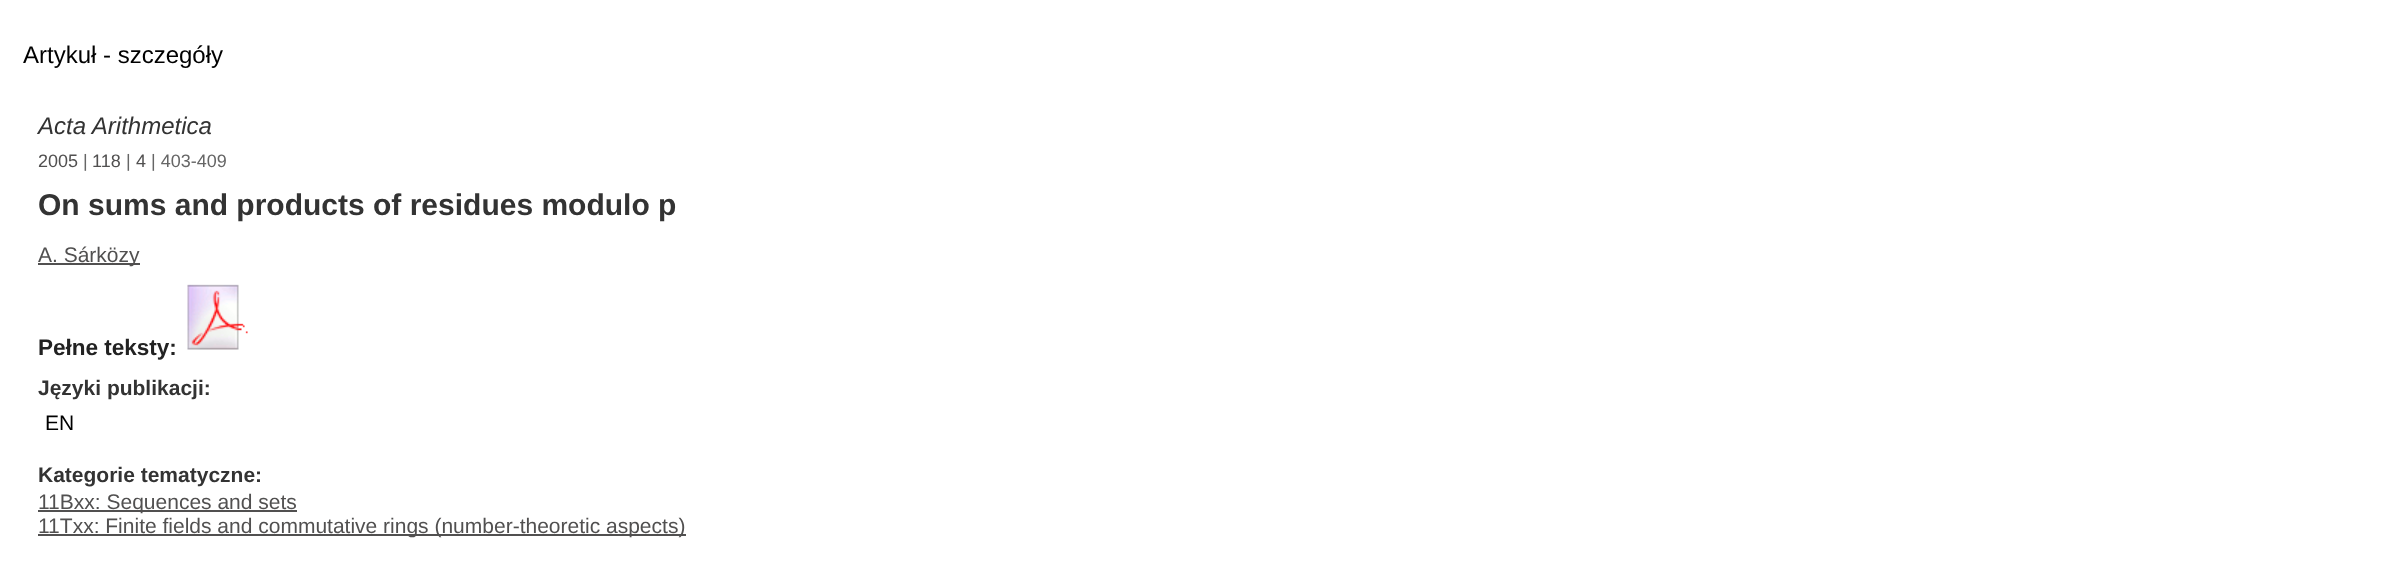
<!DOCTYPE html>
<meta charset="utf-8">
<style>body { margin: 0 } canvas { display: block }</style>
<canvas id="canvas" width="2392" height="566"></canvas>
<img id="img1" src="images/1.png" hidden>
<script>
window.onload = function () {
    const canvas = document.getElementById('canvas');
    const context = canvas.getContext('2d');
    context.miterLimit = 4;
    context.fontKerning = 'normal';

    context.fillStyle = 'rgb(255, 255, 255)';
    context.fillRect(0, 0, 2392, 566);
    context.fillStyle = 'rgb(81, 80, 80)';
    context.fillRect(38, 263, 102, 2);
    context.drawImage(document.getElementById('img1'), 187, 284, 61, 66);
    context.fillRect(38, 510, 259, 2);
    context.fillRect(38, 534, 648, 2);
    context.font = '24px Liberation Sans';
    context.fillStyle = 'rgb(0, 0, 0)';
    context.fillText('Artykuł - szczegóły', 23, 63);
    context.font = 'italic 24px Liberation Sans';
    context.fillStyle = 'rgb(51, 51, 51)';
    context.fillText('Acta Arithmetica', 38, 134);
    context.font = '18px Liberation Sans';
    context.fillStyle = 'rgb(81, 80, 80)';
    context.fillText('2005', 38, 167);
    context.fillStyle = 'rgb(102, 102, 102)';
    context.fillText('|', 83, 167);
    context.fillStyle = 'rgb(81, 80, 80)';
    context.fillText('118', 92, 167);
    context.fillStyle = 'rgb(102, 102, 102)';
    context.fillText('|', 126, 167);
    context.fillStyle = 'rgb(81, 80, 80)';
    context.fillText('4', 136, 167);
    context.fillStyle = 'rgb(102, 102, 102)';
    context.fillText('| 403-409', 151, 167);
    context.font = 'bold 30px Liberation Sans';
    context.fillStyle = 'rgb(51, 51, 51)';
    context.fillText('On sums and products of residues modulo p', 38, 215);
    context.font = '21px Liberation Sans';
    context.fillStyle = 'rgb(81, 80, 80)';
    context.fillText('A. Sárközy', 38, 262);
    context.font = 'bold 22.5px Liberation Sans';
    context.fillStyle = 'rgb(34, 34, 34)';
    context.fillText('Pełne teksty:', 38, 355);
    context.font = 'bold 21px Liberation Sans';
    context.fillStyle = 'rgb(51, 51, 51)';
    context.fillText('Języki publikacji:', 38, 395);
    context.font = '21px Liberation Sans';
    context.fillStyle = 'rgb(0, 0, 0)';
    context.fillText('EN', 45, 430);
    context.font = 'bold 21px Liberation Sans';
    context.fillStyle = 'rgb(51, 51, 51)';
    context.fillText('Kategorie tematyczne:', 38, 482);
    context.font = '21px Liberation Sans';
    context.fillStyle = 'rgb(81, 80, 80)';
    context.fillText('11Bxx: Sequences and sets', 38, 509);
    context.fillText('11Txx: Finite fields and commutative rings (number-theoretic aspects)', 38, 533);
};
</script>
